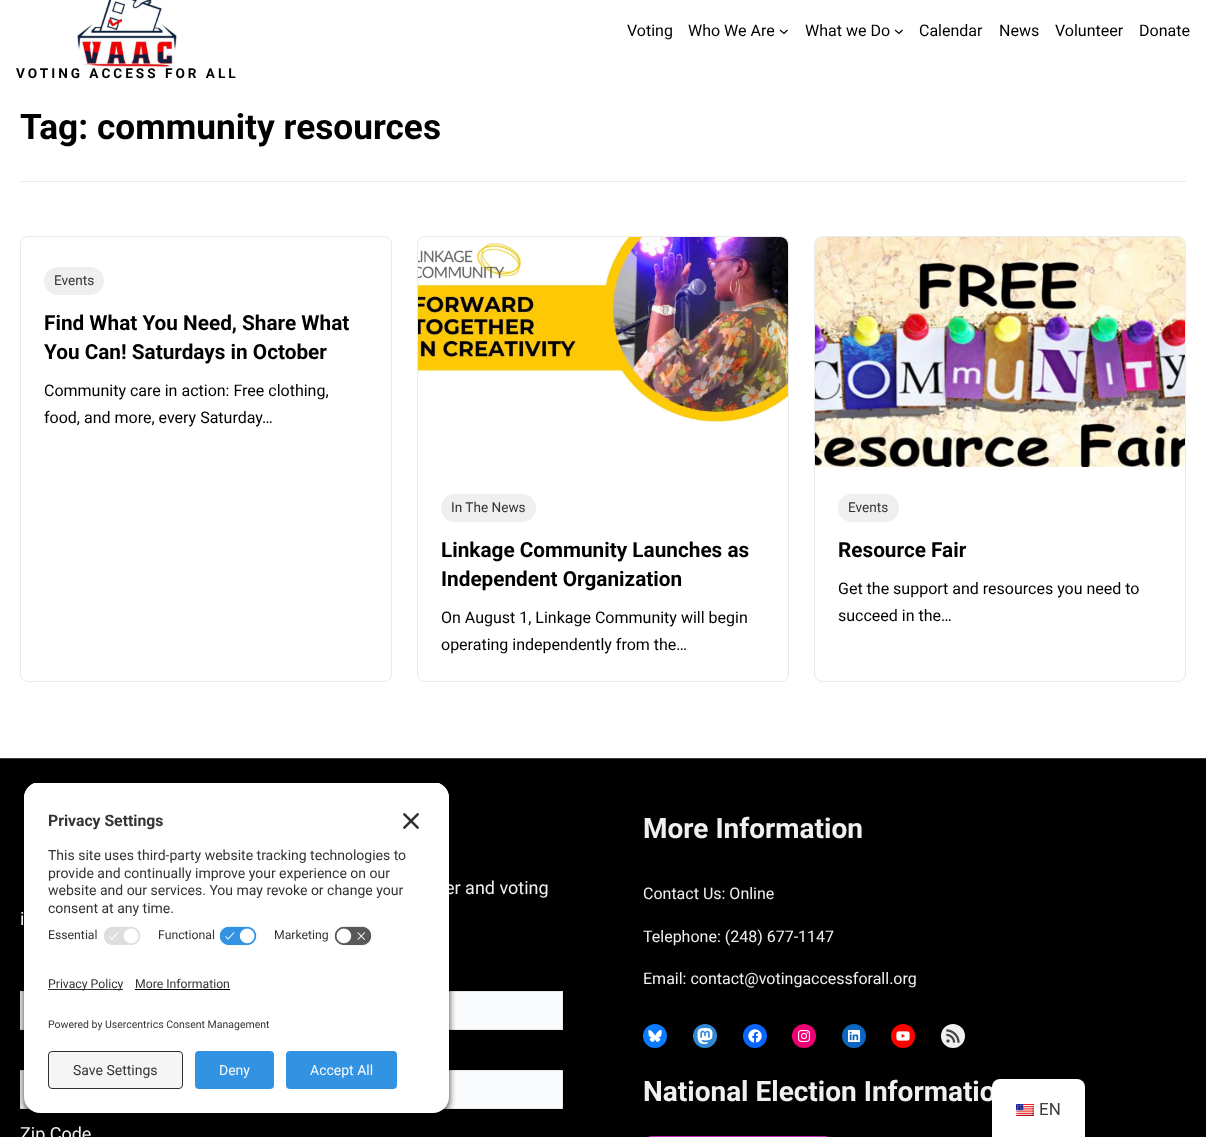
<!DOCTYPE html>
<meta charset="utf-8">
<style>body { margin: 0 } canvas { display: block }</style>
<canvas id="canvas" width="1206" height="1137"></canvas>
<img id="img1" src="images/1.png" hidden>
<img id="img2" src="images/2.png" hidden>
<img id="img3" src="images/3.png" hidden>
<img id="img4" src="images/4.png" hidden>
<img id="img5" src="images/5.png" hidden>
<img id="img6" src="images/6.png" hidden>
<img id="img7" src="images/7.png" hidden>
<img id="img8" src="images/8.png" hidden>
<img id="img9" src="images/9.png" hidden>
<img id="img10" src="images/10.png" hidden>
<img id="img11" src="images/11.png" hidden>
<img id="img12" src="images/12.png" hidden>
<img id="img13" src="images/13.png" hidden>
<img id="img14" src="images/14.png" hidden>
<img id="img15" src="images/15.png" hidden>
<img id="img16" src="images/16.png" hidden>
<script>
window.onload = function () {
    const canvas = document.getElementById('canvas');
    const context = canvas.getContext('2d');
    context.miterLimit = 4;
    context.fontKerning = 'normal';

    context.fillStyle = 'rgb(255, 255, 255)';
    context.fillRect(0, 0, 1206, 1137);
    context.beginPath();
    context.moveTo(780, 30);
    context.lineTo(784, 33.5);
    context.lineTo(787.5, 30);
    context.strokeStyle = 'rgb(0, 0, 1)';
    context.lineWidth = 1.2;
    context.stroke();
    context.beginPath();
    context.moveTo(895, 30);
    context.lineTo(899, 33.5);
    context.lineTo(902.5, 30);
    context.stroke();
    context.drawImage(document.getElementById('img1'), 77, 0, 100, 67);
    context.fillStyle = 'rgb(234, 234, 234)';
    context.fillRect(20, 181, 1166, 1);
    context.beginPath();
    context.roundRect(20.5, 236.5, 371, 445, 7.5);
    context.strokeStyle = 'rgb(234, 234, 234)';
    context.lineWidth = 1;
    context.stroke();
    context.fillStyle = 'rgb(239, 239, 239)';
    context.beginPath();
    context.roundRect(44, 267, 60, 28, 14);
    context.fill();
    context.beginPath();
    context.roundRect(417.5, 236.5, 371, 445, 7.5);
    context.stroke();
    context.drawImage(document.getElementById('img2'), 418, 237, 370, 186);
    context.beginPath();
    context.roundRect(441, 494, 95, 28, 14);
    context.fill();
    context.beginPath();
    context.roundRect(814.5, 236.5, 371, 445, 7.5);
    context.stroke();
    context.drawImage(document.getElementById('img3'), 815, 237, 370, 230);
    context.beginPath();
    context.roundRect(838, 494, 61, 28, 14);
    context.fill();
    context.fillStyle = 'rgb(0, 0, 0)';
    context.fillRect(0, 759, 1206, 378);
    context.fillStyle = 'rgb(56, 56, 56)';
    context.fillRect(0, 758, 1206, 1);
    context.fillStyle = 'rgb(250, 251, 253)';
    context.fillRect(21, 992, 3, 37);
    context.strokeStyle = 'rgb(232, 232, 233)';
    context.strokeRect(20.5, 991.5, 265, 38);
    context.fillRect(449, 992, 113, 37);
    context.strokeRect(296.5, 991.5, 266, 38);
    context.beginPath();
    context.rect(20.5, 1070.5, 542, 38);
    context.fill();
    context.stroke();
    context.fillStyle = 'rgb(10, 122, 255)';
    context.beginPath();
    context.arc(655, 1036, 12, 0, 2 * Math.PI);
    context.fill();
    context.drawImage(document.getElementById('img4'), 648, 1030, 14, 12);
    context.fillStyle = 'rgb(50, 136, 212)';
    context.beginPath();
    context.arc(705, 1036, 12, 0, 2 * Math.PI);
    context.fill();
    context.drawImage(document.getElementById('img5'), 697, 1028, 16, 16);
    context.fillStyle = 'rgb(8, 102, 255)';
    context.beginPath();
    context.arc(755, 1036, 12, 0, 2 * Math.PI);
    context.fill();
    context.drawImage(document.getElementById('img6'), 748, 1029, 14, 14);
    context.fillStyle = 'rgb(240, 0, 117)';
    context.beginPath();
    context.arc(804, 1036, 12, 0, 2 * Math.PI);
    context.fill();
    context.drawImage(document.getElementById('img7'), 798, 1030, 12, 12);
    context.fillStyle = 'rgb(13, 102, 194)';
    context.beginPath();
    context.arc(854, 1036, 12, 0, 2 * Math.PI);
    context.fill();
    context.drawImage(document.getElementById('img8'), 848, 1030, 12, 12);
    context.fillStyle = 'rgb(255, 0, 0)';
    context.beginPath();
    context.arc(903, 1036, 12, 0, 2 * Math.PI);
    context.fill();
    context.drawImage(document.getElementById('img9'), 896, 1031, 14, 10);
    context.fillStyle = 'rgb(240, 240, 240)';
    context.beginPath();
    context.arc(953, 1036, 12, 0, 2 * Math.PI);
    context.fill();
    context.drawImage(document.getElementById('img10'), 946, 1029, 14, 14);
    context.drawImage(document.getElementById('img11'), 647, 1136, 182, 1);
    context.fillStyle = 'rgba(0, 0, 0, 0.8)';
    context.filter = 'blur(3.5px)';
    context.beginPath();
    context.roundRect(24, 785, 425, 331, 16);
    context.fill();
    context.filter = 'none';
    context.fillStyle = 'rgb(255, 255, 255)';
    context.beginPath();
    context.roundRect(24, 961, 425, 152, [0, 0, 16, 16]);
    context.fill();
    context.fillStyle = 'rgb(48, 48, 48)';
    context.fillRect(48, 989, 75, 1);
    context.fillStyle = 'rgb(0, 0, 0)';
    context.fillRect(135, 989, 95, 1);
    context.fillStyle = 'rgb(245, 245, 245)';
    context.beginPath();
    context.roundRect(48.5, 1051.5, 134, 37, 3.5);
    context.fill();
    context.strokeStyle = 'rgb(48, 48, 48)';
    context.stroke();
    context.fillStyle = 'rgb(51, 147, 227)';
    context.beginPath();
    context.roundRect(195, 1051, 79, 38, 4);
    context.fill();
    context.beginPath();
    context.roundRect(286, 1051, 111, 38, 4);
    context.fill();
    context.fillStyle = 'rgba(0, 0, 0, 0.25)';
    context.filter = 'blur(4px)';
    context.beginPath();
    context.roundRect(992, 1079, 93, 58, 8);
    context.fill();
    context.filter = 'none';
    context.font = '16px Roboto';
    context.fillStyle = 'rgb(0, 0, 1)';
    context.fillText('Voting', 627, 36);
    context.fillText('Who We Are', 688, 36);
    context.fillText('What we Do', 805, 36);
    context.fillText('Calendar', 919, 36);
    context.fillText('News', 999, 36);
    context.fillText('Volunteer', 1055, 36);
    context.fillText('Donate', 1139, 36);
    context.letterSpacing = '3px';
    context.font = 'bold 13.6px Roboto';
    context.fillText('VOTING ACCESS FOR ALL', 16, 78);
    context.letterSpacing = '0px';
    context.font = 'bold 35.25px Roboto';
    context.fillText('Tag: community resources', 20, 139);
    context.font = '13.6px Roboto';
    context.fillStyle = 'rgb(51, 51, 52)';
    context.fillText('Events', 54, 285);
    context.font = 'bold 20.75px Roboto';
    context.fillStyle = 'rgb(0, 0, 1)';
    context.fillText('Find What You Need, Share What', 44, 330);
    context.fillText('You Can! Saturdays in October', 44, 359);
    context.font = '16px Roboto';
    context.fillText('Community care in action: Free clothing,', 44, 396);
    context.fillText('food, and more, every Saturday…', 44, 423);
    context.font = '13.6px Roboto';
    context.fillStyle = 'rgb(51, 51, 52)';
    context.fillText('In The News', 451, 512);
    context.font = 'bold 20.75px Roboto';
    context.fillStyle = 'rgb(0, 0, 1)';
    context.fillText('Linkage Community Launches as', 441, 557);
    context.fillText('Independent Organization', 441, 586);
    context.font = '16px Roboto';
    context.fillText('On August 1, Linkage Community will begin', 441, 623);
    context.fillText('operating independently from the…', 441, 650);
    context.font = '13.6px Roboto';
    context.fillStyle = 'rgb(51, 51, 52)';
    context.fillText('Events', 848, 512);
    context.font = 'bold 20.75px Roboto';
    context.fillStyle = 'rgb(0, 0, 1)';
    context.fillText('Resource Fair', 838, 557);
    context.font = '16px Roboto';
    context.fillText('Get the support and resources you need to', 838, 594);
    context.fillText('succeed in the…', 838, 621);
    context.font = '18px Roboto';
    context.fillStyle = 'rgb(240, 240, 240)';
    context.fillText('er and voting', 445, 894);
    context.fillText('i', 20, 925);
    context.fillText('Zip Code', 20, 1140);
    context.font = 'bold 28px Roboto';
    context.fillText('More Information', 643, 838);
    context.font = '16px Roboto';
    context.fillText('Contact Us: Online', 643, 899);
    context.fillText('Telephone: (248) 677-1147', 643, 942);
    context.fillText('Email: contact@votingaccessforall.org', 643, 984);
    context.font = 'bold 28px Roboto';
    context.fillText('National Election Informatio', 643, 1101);
    context.save();
    context.beginPath();
    context.roundRect(24, 782, 425, 179, [16, 16, 0, 0]);
    context.clip();
    context.fillStyle = 'rgb(255, 255, 255)';
    context.fillRect(24, 783, 425, 178);
    context.fillRect(24, 783, 425, 138);
    context.restore();
    context.font = 'bold 15.75px Roboto';
    context.fillStyle = 'rgb(51, 51, 52)';
    context.fillText('Privacy Settings', 48, 826);
    context.drawImage(document.getElementById('img12'), 403, 813, 16, 16);
    context.font = '14px Roboto';
    context.fillText('This site uses third-party website tracking technologies to', 48, 860);
    context.fillText('provide and continually improve your experience on our', 48, 878);
    context.fillText('website and our services. You may revoke or change your', 48, 895);
    context.fillText('consent at any time.', 48, 913);
    context.font = '12.25px Roboto';
    context.fillText('Essential', 48, 939);
    context.drawImage(document.getElementById('img13'), 103, 926, 38, 19);
    context.fillText('Functional', 158, 939);
    context.drawImage(document.getElementById('img14'), 219, 926, 38, 20);
    context.fillText('Marketing', 274, 939);
    context.drawImage(document.getElementById('img15'), 334, 926, 38, 20);
    context.fillText('Privacy Policy', 48, 988);
    context.fillText('More Information', 135, 988);
    context.font = '10.5px Roboto';
    context.fillText('Powered by Usercentrics Consent Management', 48, 1028);
    context.font = '14px Roboto';
    context.fillText('Save Settings', 73, 1075);
    context.fillStyle = 'rgb(250, 250, 250)';
    context.fillText('Deny', 219, 1075);
    context.fillText('Accept All', 310, 1075);
    context.fillStyle = 'rgb(255, 255, 255)';
    context.beginPath();
    context.roundRect(992, 1079, 93, 58, [8, 8, 0, 0]);
    context.fill();
    context.drawImage(document.getElementById('img16'), 1016, 1104, 18, 12);
    context.font = '17px Roboto';
    context.fillStyle = 'rgb(64, 64, 64)';
    context.fillText('EN', 1039, 1115);
};
</script>
